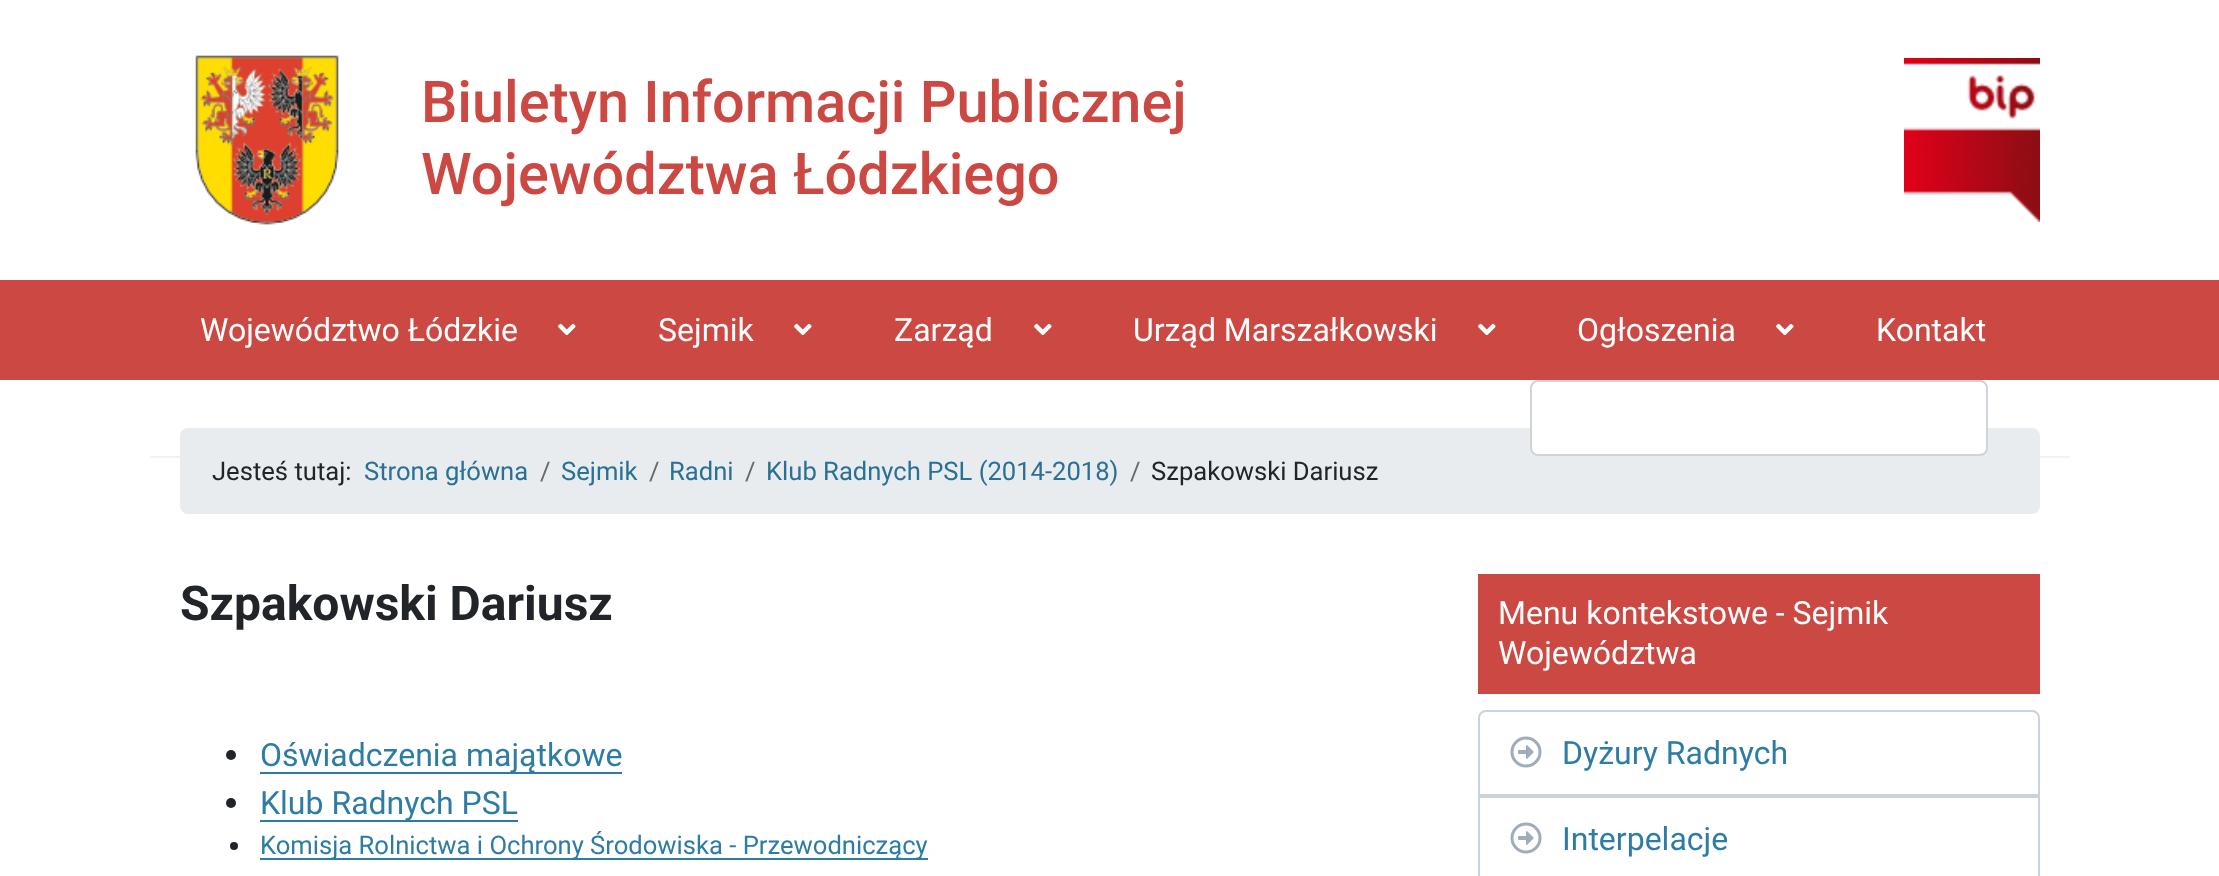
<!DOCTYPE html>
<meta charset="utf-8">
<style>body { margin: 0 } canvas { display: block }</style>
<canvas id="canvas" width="2219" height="876"></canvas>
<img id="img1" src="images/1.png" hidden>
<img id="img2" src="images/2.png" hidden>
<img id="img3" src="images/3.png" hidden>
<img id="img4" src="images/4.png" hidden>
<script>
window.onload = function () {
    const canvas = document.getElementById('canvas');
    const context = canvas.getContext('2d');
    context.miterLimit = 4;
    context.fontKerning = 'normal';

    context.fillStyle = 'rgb(255, 255, 255)';
    context.fillRect(0, 0, 2219, 876);
    context.drawImage(document.getElementById('img1'), 195, 55, 144, 170);
    context.drawImage(document.getElementById('img2'), 1904, 58, 136, 164);
    context.fillStyle = 'rgb(203, 73, 66)';
    context.fillRect(0, 280, 2219, 100);
    context.fillStyle = 'rgb(242, 242, 242)';
    context.fillRect(150, 456, 1920, 2);
    context.drawImage(document.getElementById('img3'), 558, 323, 18, 13);
    context.drawImage(document.getElementById('img3'), 794, 323, 18, 13);
    context.drawImage(document.getElementById('img3'), 1034, 323, 18, 13);
    context.drawImage(document.getElementById('img3'), 1478, 323, 18, 13);
    context.drawImage(document.getElementById('img3'), 1776, 323, 18, 13);
    context.fillStyle = 'rgb(233, 236, 239)';
    context.beginPath();
    context.roundRect(180, 428, 1860, 86, 8);
    context.fill();
    context.fillStyle = 'rgb(255, 255, 255)';
    context.beginPath();
    context.roundRect(1531, 381, 456, 74, 7);
    context.fill();
    context.strokeStyle = 'rgb(206, 212, 218)';
    context.lineWidth = 2;
    context.stroke();
    context.fillStyle = 'rgb(33, 37, 41)';
    context.beginPath();
    context.arc(231, 755, 5, 0, 2 * Math.PI);
    context.fill();
    context.fillStyle = 'rgb(45, 124, 164)';
    context.fillRect(260, 772, 362, 2);
    context.fillStyle = 'rgb(33, 37, 41)';
    context.beginPath();
    context.arc(231, 803, 5, 0, 2 * Math.PI);
    context.fill();
    context.fillStyle = 'rgb(45, 124, 164)';
    context.fillRect(260, 820, 258, 2);
    context.fillStyle = 'rgb(33, 37, 41)';
    context.beginPath();
    context.arc(234, 846, 4, 0, 2 * Math.PI);
    context.fill();
    context.fillStyle = 'rgb(45, 124, 164)';
    context.fillRect(260, 858, 668, 2);
    context.fillStyle = 'rgb(203, 73, 66)';
    context.fillRect(1478, 574, 562, 120);
    context.beginPath();
    context.roundRect(1479, 711, 560, 84, [7, 7, 0, 0]);
    context.strokeStyle = 'rgb(203, 211, 218)';
    context.stroke();
    context.drawImage(document.getElementById('img4'), 1510, 736, 32, 32);
    context.strokeRect(1479, 797, 560, 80);
    context.drawImage(document.getElementById('img4'), 1510, 822, 32, 32);
    context.font = '500 57.6px Roboto';
    context.fillText('Biuletyn Informacji Publicznej', 421, 122);
    context.fillText('Województwa Łódzkiego', 421, 194);
    context.font = '32px Roboto';
    context.fillStyle = 'rgb(255, 255, 255)';
    context.fillText('Województwo Łódzkie', 200, 341);
    context.fillText('Sejmik', 658, 341);
    context.fillText('Zarząd', 894, 341);
    context.fillText('Urząd Marszałkowski', 1133, 341);
    context.fillText('Ogłoszenia', 1577, 341);
    context.fillText('Kontakt', 1876, 341);
    context.font = '25.6px Roboto';
    context.fillStyle = 'rgb(33, 37, 41)';
    context.fillText('Jesteś tutaj:', 212, 480);
    context.fillStyle = 'rgb(41, 112, 148)';
    context.fillText('Strona główna', 364, 480);
    context.fillStyle = 'rgb(105, 105, 105)';
    context.fillText('/', 540, 480);
    context.fillStyle = 'rgb(41, 112, 148)';
    context.fillText('Sejmik', 561, 480);
    context.fillStyle = 'rgb(105, 105, 105)';
    context.fillText('/', 649, 480);
    context.fillStyle = 'rgb(41, 112, 148)';
    context.fillText('Radni', 669, 480);
    context.fillStyle = 'rgb(105, 105, 105)';
    context.fillText('/', 745, 480);
    context.fillStyle = 'rgb(41, 112, 148)';
    context.fillText('Klub Radnych PSL (2014-2018)', 766, 480);
    context.fillStyle = 'rgb(105, 105, 105)';
    context.fillText('/', 1130, 480);
    context.fillStyle = 'rgb(33, 37, 41)';
    context.fillText('Szpakowski Dariusz', 1151, 480);
    context.font = 'bold 48px Roboto';
    context.fillText('Szpakowski Dariusz', 180, 620);
    context.font = '32px Roboto';
    context.fillStyle = 'rgb(45, 124, 164)';
    context.fillText('Oświadczenia majątkowe', 260, 766);
    context.fillText('Klub Radnych PSL', 260, 814);
    context.font = '25.6px Roboto';
    context.fillText('Komisja Rolnictwa i Ochrony Środowiska - Przewodniczący', 260, 854);
    context.font = '32px Roboto';
    context.fillStyle = 'rgb(255, 255, 255)';
    context.fillText('Menu kontekstowe - Sejmik', 1498, 624);
    context.fillText('Województwa', 1498, 664);
    context.fillStyle = 'rgb(45, 124, 164)';
    context.fillText('Dyżury Radnych', 1562, 764);
    context.fillText('Interpelacje', 1562, 850);
};
</script>
